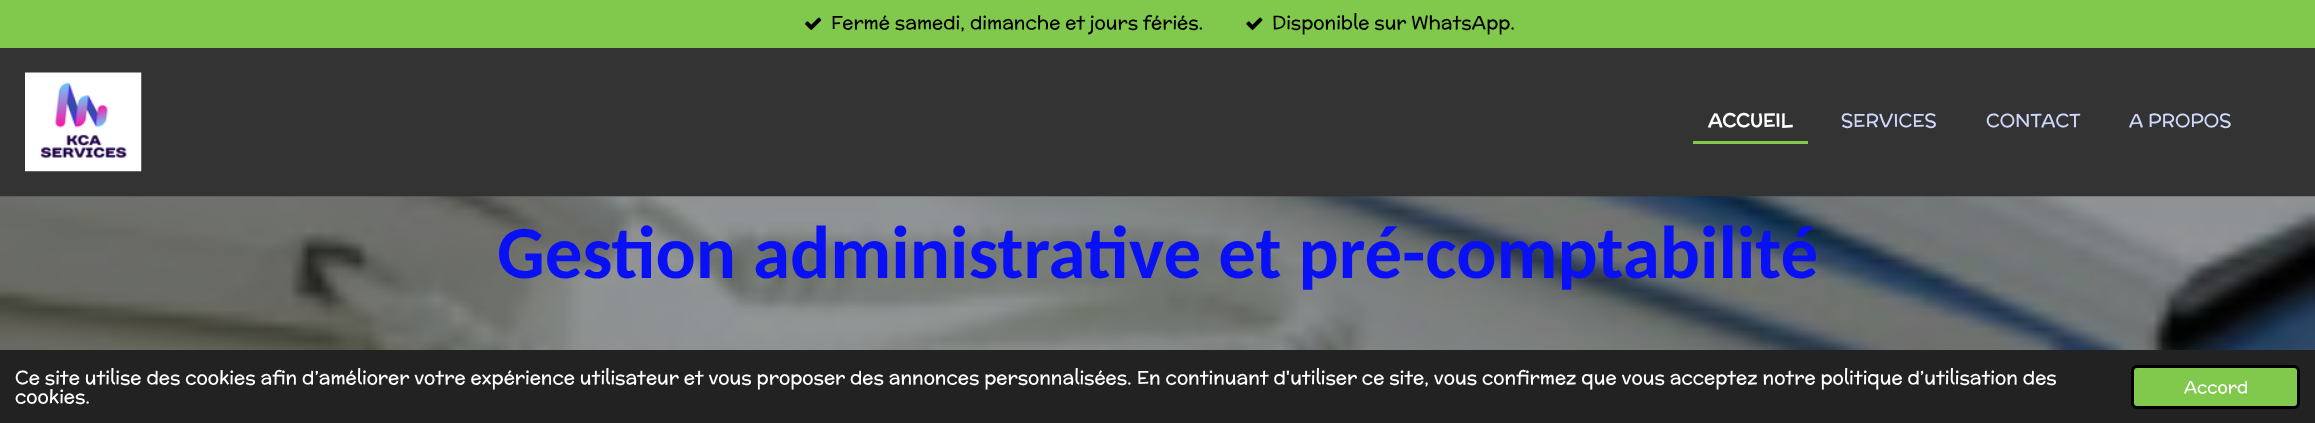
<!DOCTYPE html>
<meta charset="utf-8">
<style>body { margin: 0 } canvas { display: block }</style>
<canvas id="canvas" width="2315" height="423"></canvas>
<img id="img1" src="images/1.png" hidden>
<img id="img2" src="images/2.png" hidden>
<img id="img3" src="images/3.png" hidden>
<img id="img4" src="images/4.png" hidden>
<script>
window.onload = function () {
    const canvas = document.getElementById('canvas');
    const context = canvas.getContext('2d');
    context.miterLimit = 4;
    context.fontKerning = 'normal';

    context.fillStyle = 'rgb(51, 51, 51)';
    context.fillRect(0, 0, 2315, 423);
    context.fillStyle = 'rgb(129, 201, 76)';
    context.fillRect(0, 0, 2315, 48);
    context.drawImage(document.getElementById('img1'), 805, 17, 17, 13);
    context.drawImage(document.getElementById('img2'), 1246, 17, 17, 13);
    context.drawImage(document.getElementById('img3'), 25, 72, 117, 100);
    context.beginPath();
    context.moveTo(1693, 141);
    context.lineTo(1693, 144);
    context.lineTo(1808, 144);
    context.lineTo(1808, 104);
    context.lineTo(1808, 141);
    context.closePath();
    context.fill();
    context.drawImage(document.getElementById('img4'), 0, 196, 2315, 154);
    context.fillStyle = 'rgb(34, 34, 34)';
    context.fillRect(0, 350, 2315, 73);
    context.fillStyle = 'rgb(129, 201, 76)';
    context.beginPath();
    context.roundRect(2132.5, 366.5, 166, 41, 4.5);
    context.fill();
    context.strokeStyle = 'rgb(0, 0, 0)';
    context.lineWidth = 3;
    context.stroke();
    context.font = '18.75px McLaren';
    context.fillStyle = 'rgb(0, 0, 0)';
    context.fillText('Fermé samedi, dimanche et jours fériés.', 831, 29);
    context.fillText('Disponible sur WhatsApp.', 1272, 29);
    context.font = 'bold 18.75px McLaren';
    context.fillStyle = 'rgb(255, 255, 255)';
    context.fillText('ACCUEIL', 1708, 127);
    context.font = '18.75px McLaren';
    context.fillStyle = 'rgb(206, 216, 251)';
    context.fillText('SERVICES', 1841, 127);
    context.fillText('CONTACT', 1986, 127);
    context.fillText('A PROPOS', 2129, 127);
    context.font = 'bold 75px Carlito';
    context.fillStyle = 'rgb(10, 16, 246)';
    context.fillText('Gestion administrative et pré-comptabilité', 497, 278);
    context.font = '18.75px McLaren';
    context.fillStyle = 'rgb(255, 255, 255)';
    context.fillText('Ce site utilise des cookies afin d’améliorer votre expérience utilisateur et vous proposer des annonces personnalisées. En continuant d\'utiliser ce site, vous confirmez que vous acceptez notre politique d’utilisation des', 15, 384);
    context.fillText('cookies.', 15, 403);
    context.font = '17px McLaren';
    context.fillText('Accord', 2184, 393);
};
</script>
